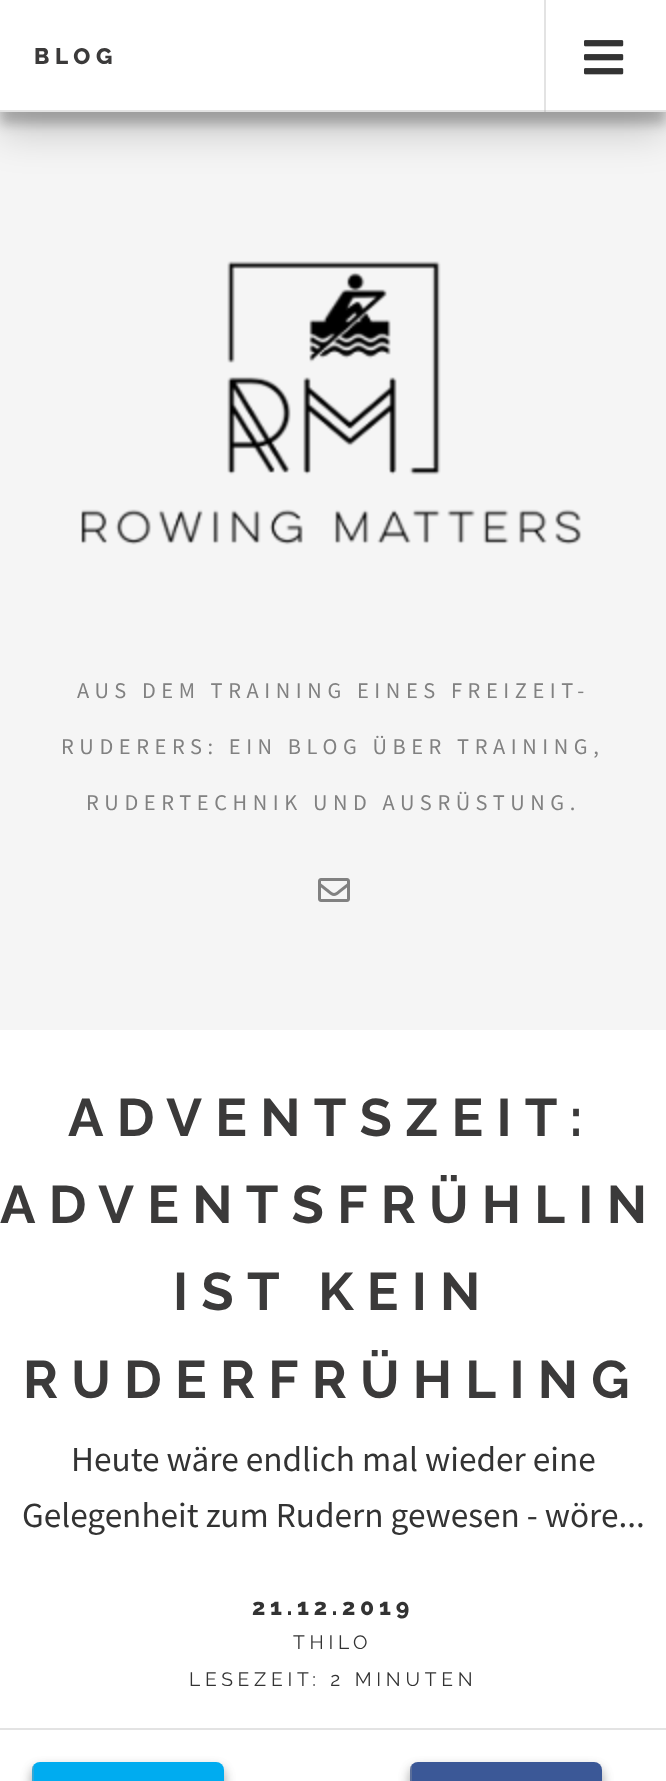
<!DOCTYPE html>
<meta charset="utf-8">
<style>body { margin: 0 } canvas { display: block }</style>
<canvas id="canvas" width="666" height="1781"></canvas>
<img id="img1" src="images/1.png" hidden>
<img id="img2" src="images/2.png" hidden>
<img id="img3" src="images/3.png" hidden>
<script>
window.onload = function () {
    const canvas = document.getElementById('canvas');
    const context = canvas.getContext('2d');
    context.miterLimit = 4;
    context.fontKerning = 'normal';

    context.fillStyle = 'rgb(245, 245, 245)';
    context.fillRect(0, 0, 666, 1781);
    context.fillStyle = 'rgba(0, 0, 0, 0.23)';
    context.filter = 'blur(6px)';
    context.beginPath();
    context.rect(0, 12, 666, 112);
    context.fill();
    context.filter = 'none';
    context.fillStyle = 'rgba(0, 0, 0, 0.19)';
    context.filter = 'blur(20px)';
    context.beginPath();
    context.rect(0, 20, 666, 112);
    context.fill();
    context.filter = 'none';
    context.fillStyle = 'rgb(255, 255, 255)';
    context.fillRect(0, 0, 666, 110);
    context.fillStyle = 'rgb(227, 227, 227)';
    context.fillRect(544, 0, 2, 112);
    context.fillRect(0, 110, 666, 2);
    context.fillStyle = 'rgb(207, 207, 207)';
    context.fillRect(544, 110, 2, 2);
    context.drawImage(document.getElementById('img1'), 584, 40, 40, 35);
    context.drawImage(document.getElementById('img2'), 81, 261, 501, 284);
    context.drawImage(document.getElementById('img3'), 318, 878, 32, 24);
    context.fillStyle = 'rgb(255, 255, 255)';
    context.fillRect(0, 1030, 666, 751);
    context.fillStyle = 'rgb(227, 227, 227)';
    context.fillRect(0, 1728, 666, 2);
    context.fillStyle = 'rgba(0, 0, 0, 0.23)';
    context.filter = 'blur(6px)';
    context.beginPath();
    context.roundRect(32, 1768, 192, 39, 8);
    context.fill();
    context.filter = 'none';
    context.fillStyle = 'rgba(0, 0, 0, 0.16)';
    context.filter = 'blur(6px)';
    context.beginPath();
    context.roundRect(32, 1768, 192, 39, 8);
    context.fill();
    context.filter = 'none';
    context.fillStyle = 'rgb(0, 172, 240)';
    context.beginPath();
    context.roundRect(32, 1762, 192, 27, 8);
    context.fill();
    context.fillStyle = 'rgba(161, 161, 161, 0.3)';
    context.fillRect(32, 1766, 2, 15);
    context.fillStyle = 'rgba(0, 0, 0, 0.23)';
    context.filter = 'blur(6px)';
    context.beginPath();
    context.roundRect(410, 1768, 192, 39, 8);
    context.fill();
    context.filter = 'none';
    context.fillStyle = 'rgba(0, 0, 0, 0.16)';
    context.filter = 'blur(6px)';
    context.beginPath();
    context.roundRect(410, 1768, 192, 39, 8);
    context.fill();
    context.filter = 'none';
    context.fillStyle = 'rgb(59, 88, 151)';
    context.beginPath();
    context.roundRect(410, 1762, 192, 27, 8);
    context.fill();
    context.fillStyle = 'rgba(161, 161, 161, 0.3)';
    context.fillRect(410, 1766, 2, 15);
    context.letterSpacing = '5.6px';
    context.font = '800 22.4px Raleway';
    context.fillStyle = 'rgb(59, 58, 58)';
    context.fillText('BLOG', 34, 64);
    context.font = '22.4px Source Sans Pro';
    context.fillStyle = 'rgb(129, 129, 129)';
    context.fillText('AUS DEM TRAINING EINES FREIZEIT-', 77, 698);
    context.fillText('RUDERERS: EIN BLOG ÜBER TRAINING,', 61, 754);
    context.fillText('RUDERTECHNIK UND AUSRÜSTUNG.', 86, 810);
    context.letterSpacing = '13.25px';
    context.font = 'bold 52.75px Raleway';
    context.fillStyle = 'rgb(59, 58, 58)';
    context.fillText('ADVENTSZEIT:', 68, 1136);
    context.fillText('ADVENTSFRÜHLIN', 0, 1223);
    context.wordSpacing = '1px';
    context.fillText('IST KEIN', 173, 1310);
    context.wordSpacing = '0px';
    context.fillText('RUDERFRÜHLING', 23, 1398);
    context.letterSpacing = '0px';
    context.font = '35.25px Source Sans Pro';
    context.fillStyle = 'rgb(51, 51, 51)';
    context.fillText('Heute wäre endlich mal wieder eine', 71, 1471);
    context.fillText('Gelegenheit zum Rudern gewesen - wöre...', 22, 1527);
    context.letterSpacing = '4.75px';
    context.font = '800 23px Raleway';
    context.fillText('21.12.2019', 252, 1615);
    context.font = '19.25px Raleway';
    context.fillText('THILO', 293, 1649);
    context.fillText('LESEZEIT: 2 MINUTEN', 189, 1686);
};
</script>
